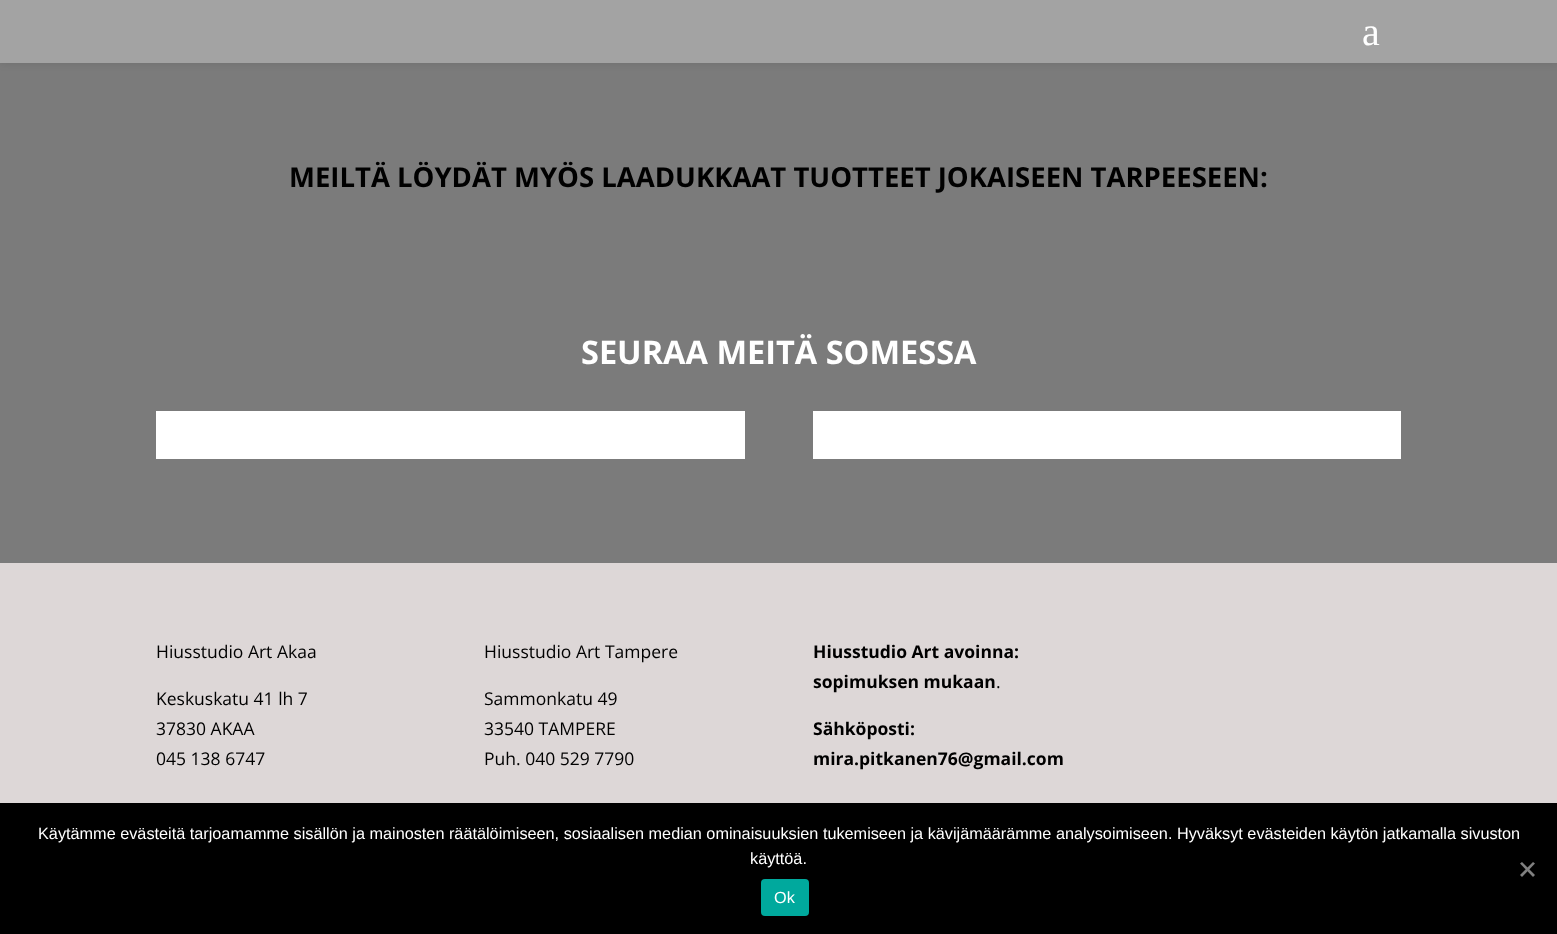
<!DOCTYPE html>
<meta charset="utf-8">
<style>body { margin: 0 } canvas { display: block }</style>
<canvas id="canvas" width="1557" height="934"></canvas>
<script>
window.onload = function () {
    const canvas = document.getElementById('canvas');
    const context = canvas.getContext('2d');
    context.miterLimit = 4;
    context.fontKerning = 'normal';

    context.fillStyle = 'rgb(221, 215, 215)';
    context.fillRect(0, 0, 1557, 934);
    context.fillStyle = 'rgb(123, 123, 123)';
    context.fillRect(0, 63, 1557, 500);
    context.fillStyle = 'rgba(0, 0, 0, 0.1)';
    context.filter = 'blur(4.5px)';
    context.beginPath();
    context.rect(0, 0, 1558, 63);
    context.fill();
    context.filter = 'none';
    context.fillStyle = 'rgb(163, 163, 163)';
    context.fillRect(0, 0, 1557, 63);
    context.fillStyle = 'rgb(255, 255, 255)';
    context.fillRect(156, 411, 589, 48);
    context.fillRect(813, 411, 588, 48);
    context.fillStyle = 'rgb(0, 0, 0)';
    context.fillRect(0, 803, 1557, 131);
    context.fillStyle = 'rgb(128, 128, 128)';
    context.beginPath();
    context.moveTo(1533, 862);
    context.lineTo(1535, 863.5);
    context.lineTo(1522, 877);
    context.lineTo(1520, 875);
    context.closePath();
    context.fill();
    context.beginPath();
    context.moveTo(1520, 863.5);
    context.lineTo(1522, 862);
    context.lineTo(1535, 875);
    context.lineTo(1533, 877);
    context.closePath();
    context.fill();
    context.fillStyle = 'rgb(0, 169, 157)';
    context.beginPath();
    context.roundRect(761, 879, 48, 37, 4);
    context.fill();
    context.font = '40px Liberation Serif';
    context.fillStyle = 'rgb(255, 255, 255)';
    context.fillText('a', 1362, 45);
    context.font = 'bold 27.5px Open Sans';
    context.fillStyle = 'rgb(0, 0, 0)';
    context.fillText('MEILTÄ LÖYDÄT MYÖS LAADUKKAAT TUOTTEET JOKAISEEN TARPEESEEN:', 289, 187);
    context.font = 'bold 32.5px Open Sans';
    context.fillStyle = 'rgb(255, 255, 255)';
    context.fillText('SEURAA MEITÄ SOMESSA', 581, 364);
    context.font = '17.5px Open Sans';
    context.fillStyle = 'rgb(0, 0, 0)';
    context.fillText('Hiusstudio Art Akaa', 156, 658);
    context.fillText('Keskuskatu 41 lh 7', 156, 705);
    context.fillText('37830 AKAA', 156, 735);
    context.fillText('045 138 6747', 156, 765);
    context.fillText('Hiusstudio Art Tampere', 484, 658);
    context.fillText('Sammonkatu 49', 484, 705);
    context.fillText('33540 TAMPERE', 484, 735);
    context.fillText('Puh. 040 529 7790', 484, 765);
    context.font = 'bold 17.5px Open Sans';
    context.fillText('Hiusstudio Art avoinna:', 813, 658);
    context.fillText('sopimuksen mukaan', 813, 688);
    context.font = '17.5px Open Sans';
    context.fillText('.', 996, 688);
    context.font = 'bold 17.5px Open Sans';
    context.fillText('Sähköposti:', 813, 735);
    context.fillText('mira.pitkanen76@gmail.com', 813, 765);
    context.font = '16.25px Liberation Sans';
    context.fillStyle = 'rgb(255, 255, 255)';
    context.fillText('Käytämme evästeitä tarjoamamme sisällön ja mainosten räätälöimiseen, sosiaalisen median ominaisuuksien tukemiseen ja kävijämäärämme analysoimiseen. Hyväksyt evästeiden käytön jatkamalla sivuston', 38, 839);
    context.fillText('käyttöä.', 750, 864);
    context.fillText('Ok', 774, 903);
};
</script>
